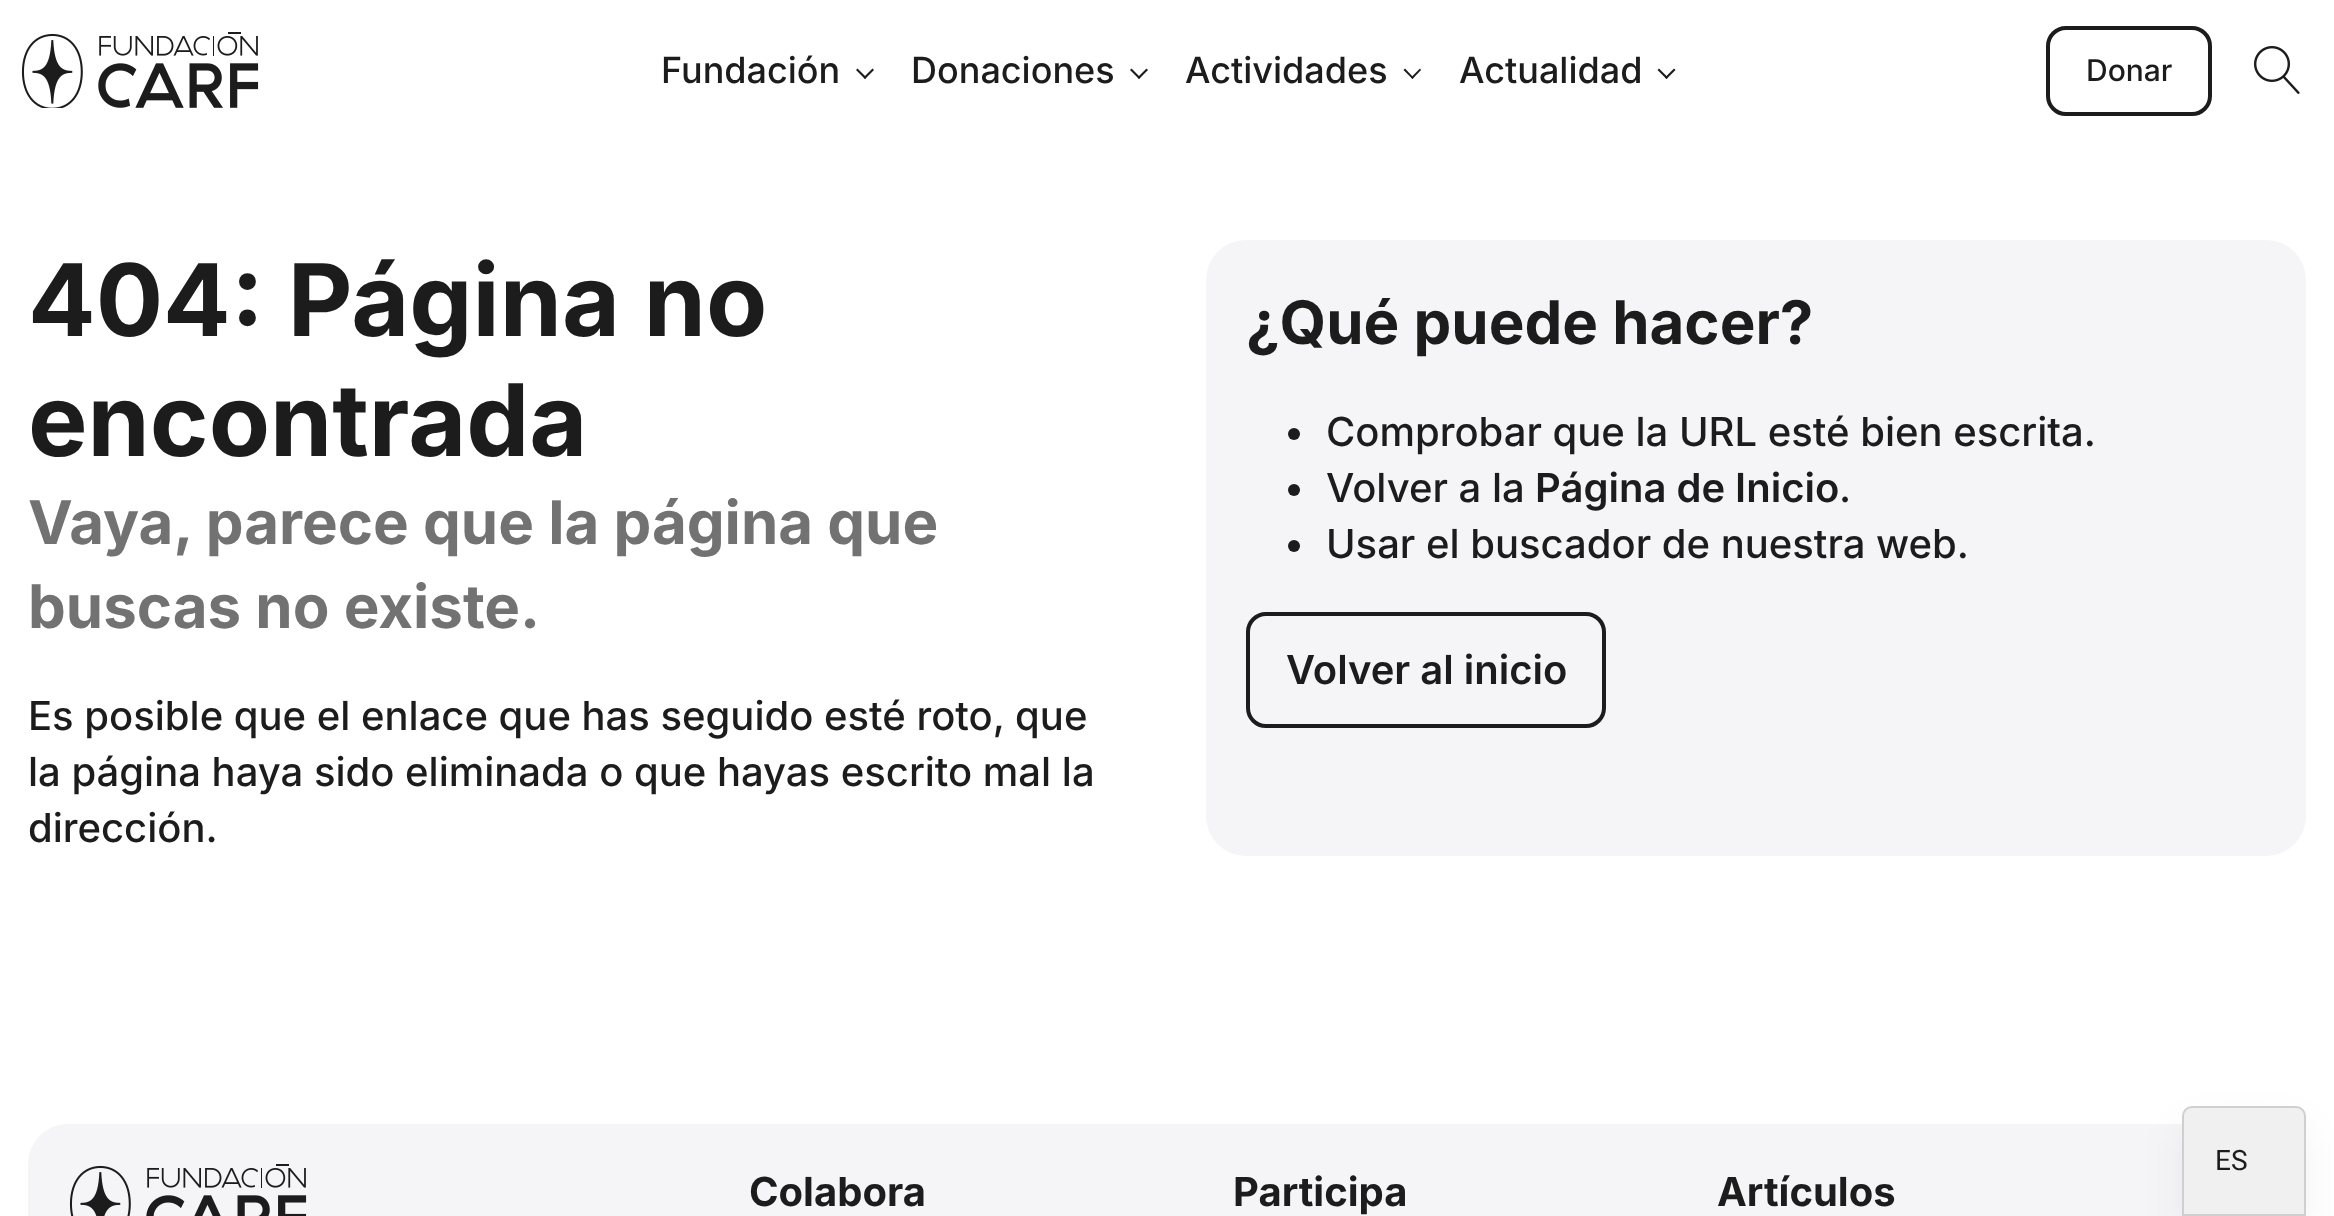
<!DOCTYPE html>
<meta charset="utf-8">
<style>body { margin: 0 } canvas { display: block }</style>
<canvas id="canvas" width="2334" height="1216"></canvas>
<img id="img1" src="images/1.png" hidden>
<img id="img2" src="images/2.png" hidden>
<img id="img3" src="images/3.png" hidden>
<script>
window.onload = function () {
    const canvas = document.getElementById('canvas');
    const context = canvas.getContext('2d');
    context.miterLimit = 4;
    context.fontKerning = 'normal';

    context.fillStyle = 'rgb(255, 255, 255)';
    context.fillRect(0, 0, 2334, 1216);
    context.drawImage(document.getElementById('img1'), 21, 32, 238, 76);
    context.fillStyle = 'rgb(28, 28, 28)';
    context.beginPath();
    context.moveTo(874, 70);
    context.lineTo(865, 79);
    context.lineTo(863.5, 77.5);
    context.lineTo(872.5, 68.5);
    context.closePath();
    context.fill();
    context.beginPath();
    context.moveTo(866.5, 77.5);
    context.lineTo(865, 79);
    context.lineTo(856, 70);
    context.lineTo(857.5, 68.5);
    context.closePath();
    context.fill();
    context.beginPath();
    context.moveTo(1148, 70);
    context.lineTo(1139, 79);
    context.lineTo(1137.5, 77.5);
    context.lineTo(1146.5, 68.5);
    context.closePath();
    context.fill();
    context.beginPath();
    context.moveTo(1140.5, 77.5);
    context.lineTo(1139, 79);
    context.lineTo(1130, 70);
    context.lineTo(1131.5, 68.5);
    context.closePath();
    context.fill();
    context.beginPath();
    context.moveTo(1421, 70);
    context.lineTo(1412.5, 79);
    context.lineTo(1411, 77.5);
    context.lineTo(1420, 68.5);
    context.closePath();
    context.fill();
    context.beginPath();
    context.moveTo(1413.5, 77.5);
    context.lineTo(1412.5, 79);
    context.lineTo(1403.5, 70);
    context.lineTo(1405, 68.5);
    context.closePath();
    context.fill();
    context.beginPath();
    context.moveTo(1675.5, 70);
    context.lineTo(1666.5, 79);
    context.lineTo(1665, 77.5);
    context.lineTo(1674, 68.5);
    context.closePath();
    context.fill();
    context.beginPath();
    context.moveTo(1668, 77.5);
    context.lineTo(1666.5, 79);
    context.lineTo(1657.5, 70);
    context.lineTo(1659, 68.5);
    context.closePath();
    context.fill();
    context.beginPath();
    context.roundRect(2048, 28, 162, 86, 18);
    context.strokeStyle = 'rgb(28, 28, 28)';
    context.lineWidth = 4;
    context.stroke();
    context.drawImage(document.getElementById('img2'), 2254, 46, 46, 48);
    context.fillStyle = 'rgb(245, 245, 247)';
    context.beginPath();
    context.roundRect(1206, 240, 1100, 616, 40);
    context.fill();
    context.fillStyle = 'rgb(28, 28, 28)';
    context.beginPath();
    context.arc(1294, 434, 6, 0, 2 * Math.PI);
    context.fill();
    context.beginPath();
    context.arc(1294, 490, 6, 0, 2 * Math.PI);
    context.fill();
    context.beginPath();
    context.arc(1294, 546, 6, 0, 2 * Math.PI);
    context.fill();
    context.beginPath();
    context.roundRect(1248, 614, 356, 112, 18);
    context.stroke();
    context.fillStyle = 'rgb(245, 245, 247)';
    context.beginPath();
    context.roundRect(28, 1124, 2278, 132, 40);
    context.fill();
    context.fillStyle = 'rgba(0, 0, 0, 0.05)';
    context.filter = 'blur(20px)';
    context.beginPath();
    context.roundRect(2182, 1126, 124, 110, 10);
    context.fill();
    context.filter = 'none';
    context.fillStyle = 'rgb(240, 240, 240)';
    context.beginPath();
    context.roundRect(2183, 1107, 122, 108, [9, 9, 0, 0]);
    context.fill();
    context.strokeStyle = 'rgb(207, 207, 207)';
    context.lineWidth = 2;
    context.stroke();
    context.drawImage(document.getElementById('img3'), 69, 1164, 238, 52);
    context.font = '500 36px Inter';
    context.fillStyle = 'rgb(28, 28, 28)';
    context.fillText('Fundación', 661, 83);
    context.fillText('Donaciones', 911, 83);
    context.fillText('Actividades', 1185, 83);
    context.fillText('Actualidad', 1459, 83);
    context.font = '500 30px Inter';
    context.fillText('Donar', 2086, 81);
    context.font = 'bold 100px Inter';
    context.fillText('404: Página no', 28, 336);
    context.fillText('encontrada', 28, 456);
    context.font = 'bold 60px Inter';
    context.fillStyle = 'rgb(114, 114, 114)';
    context.fillText('Vaya, parece que la página que', 28, 544);
    context.fillText('buscas no existe.', 28, 628);
    context.font = '500 40px Inter';
    context.fillStyle = 'rgb(28, 28, 28)';
    context.fillText('Es posible que el enlace que has seguido esté roto, que', 28, 730);
    context.fillText('la página haya sido eliminada o que hayas escrito mal la', 28, 786);
    context.fillText('dirección.', 28, 842);
    context.font = 'bold 60px Inter';
    context.fillText('¿Qué puede hacer?', 1246, 344);
    context.font = '500 40px Inter';
    context.fillText('Comprobar que la URL esté bien escrita.', 1326, 446);
    context.fillText('Volver a la', 1326, 502);
    context.font = '600 40px Inter';
    context.fillText('Página de Inicio', 1535, 502);
    context.font = '500 40px Inter';
    context.fillText('.', 1839, 502);
    context.fillText('Usar el buscador de nuestra web.', 1326, 558);
    context.font = '600 40px Inter';
    context.fillText('Volver al inicio', 1286, 684);
    context.font = '28px Roboto';
    context.fillText('ES', 2215, 1170);
    context.font = 'bold 40px Inter';
    context.fillText('Colabora', 749, 1206);
    context.fillText('Participa', 1233, 1206);
    context.fillText('Artículos', 1717, 1206);
};
</script>
